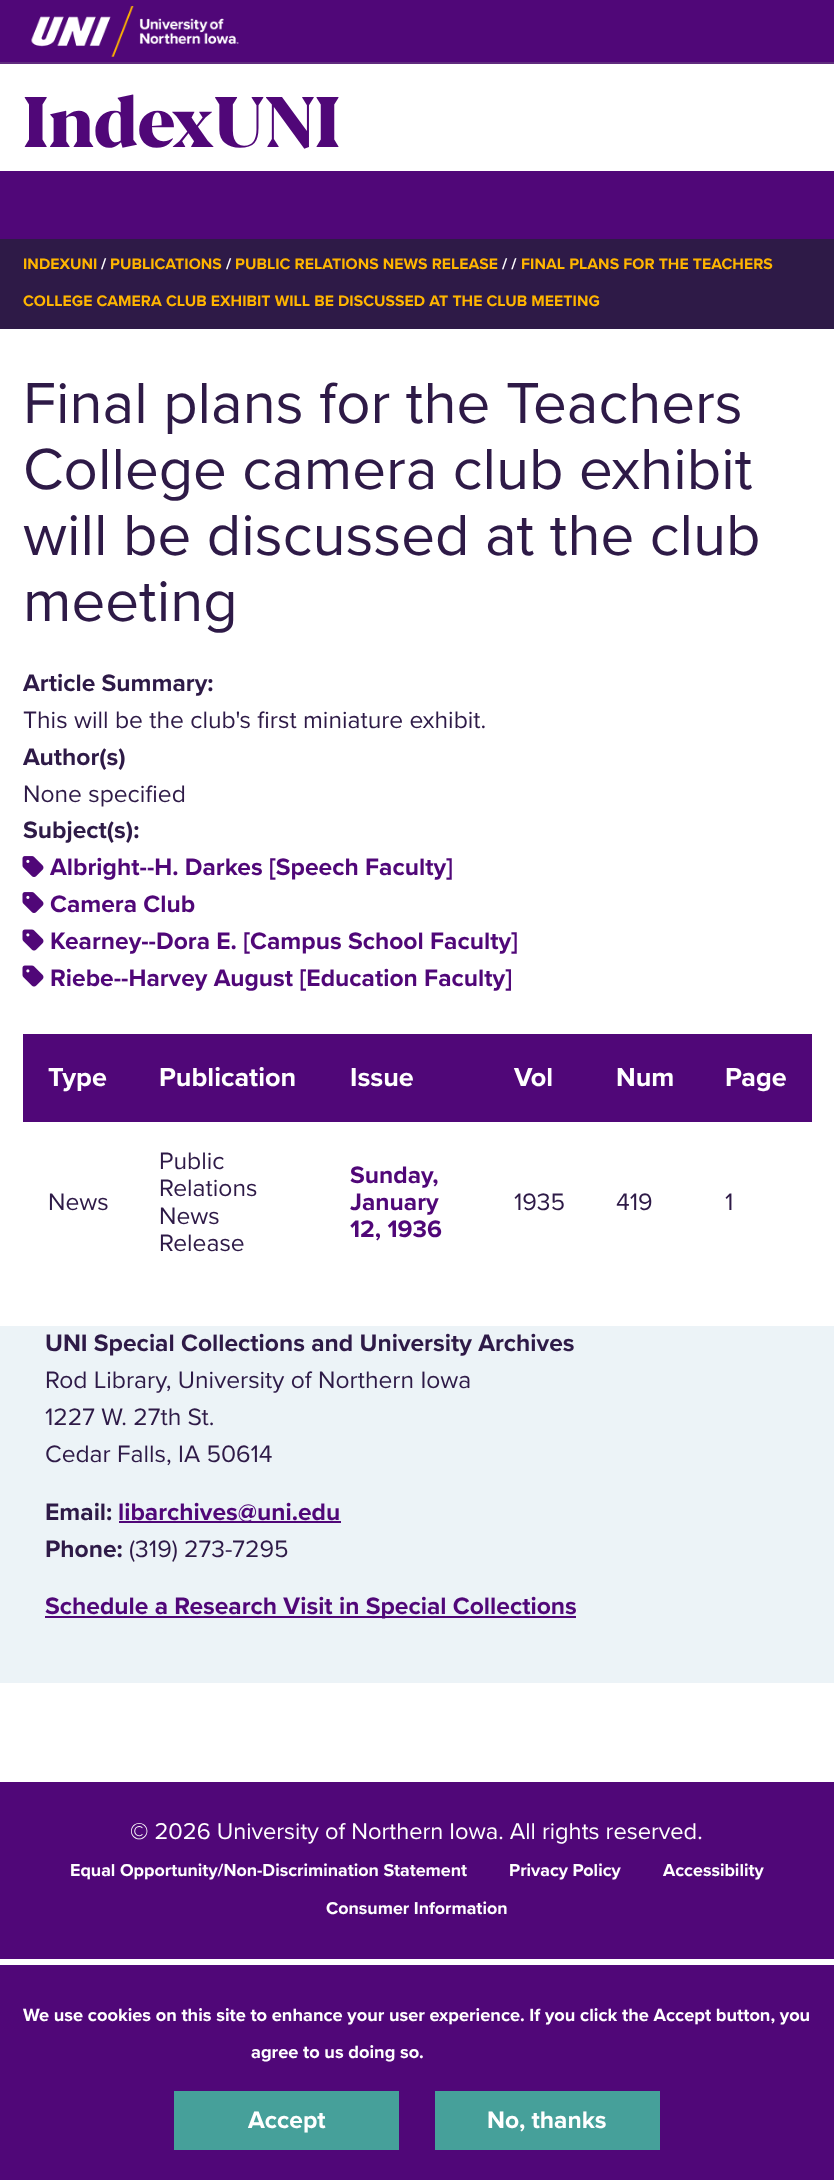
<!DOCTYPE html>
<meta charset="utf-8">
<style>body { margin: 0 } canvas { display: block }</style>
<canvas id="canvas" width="834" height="2180"></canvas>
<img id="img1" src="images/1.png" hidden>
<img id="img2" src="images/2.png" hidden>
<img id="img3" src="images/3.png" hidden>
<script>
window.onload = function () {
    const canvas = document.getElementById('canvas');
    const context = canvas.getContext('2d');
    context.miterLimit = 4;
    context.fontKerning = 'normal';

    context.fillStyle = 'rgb(255, 255, 255)';
    context.fillRect(0, 0, 834, 2180);
    context.fillStyle = 'rgb(80, 7, 120)';
    context.fillRect(0, 0, 834, 62);
    context.fillStyle = 'rgb(96, 44, 126)';
    context.fillRect(0, 62, 834, 2);
    context.drawImage(document.getElementById('img1'), 31, 6, 208, 51);
    context.fillStyle = 'rgb(80, 7, 120)';
    context.fillRect(0, 171, 834, 68);
    context.fillStyle = 'rgb(46, 26, 71)';
    context.fillRect(0, 239, 834, 90);
    context.drawImage(document.getElementById('img2'), 22, 856, 22, 21);
    context.drawImage(document.getElementById('img2'), 22, 892, 22, 21);
    context.drawImage(document.getElementById('img3'), 22, 929, 22, 22);
    context.drawImage(document.getElementById('img3'), 22, 965, 22, 22);
    context.fillStyle = 'rgb(80, 7, 120)';
    context.fillRect(23, 1034, 789, 88);
    context.fillStyle = 'rgb(236, 243, 247)';
    context.fillRect(0, 1326, 834, 357);
    context.fillStyle = 'rgb(80, 7, 120)';
    context.fillRect(119, 1521, 222, 2);
    context.fillRect(45, 1616, 531, 2);
    context.fillRect(0, 1782, 834, 177);
    context.fillRect(0, 1965, 834, 215);
    context.fillStyle = 'rgb(70, 160, 154)';
    context.fillRect(174, 2091, 225, 59);
    context.fillRect(435, 2091, 225, 59);
    context.font = '900 71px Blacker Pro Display';
    context.fillStyle = 'rgb(80, 7, 120)';
    context.fillText('IndexUNI', 23, 147);
    context.letterSpacing = '0.05px';
    context.font = 'bold 15.75px Proxima Nova';
    context.fillStyle = 'rgb(255, 181, 0)';
    context.fillText('INDEXUNI', 23, 269);
    context.fillStyle = 'rgb(255, 255, 255)';
    context.fillText('/', 101, 269);
    context.fillStyle = 'rgb(255, 181, 0)';
    context.fillText('PUBLICATIONS', 110, 269);
    context.fillStyle = 'rgb(255, 255, 255)';
    context.fillText('/', 226, 269);
    context.fillStyle = 'rgb(255, 181, 0)';
    context.fillText('PUBLIC RELATIONS NEWS RELEASE', 235, 269);
    context.fillStyle = 'rgb(255, 255, 255)';
    context.fillText('/ /', 502, 269);
    context.fillStyle = 'rgb(255, 181, 0)';
    context.fillText('FINAL PLANS FOR THE TEACHERS', 521, 269);
    context.fillText('COLLEGE CAMERA CLUB EXHIBIT WILL BE DISCUSSED AT THE CLUB MEETING', 23, 306);
    context.letterSpacing = '0px';
    context.font = '60px Proxima Nova';
    context.fillStyle = 'rgb(46, 26, 71)';
    context.fillText('Final plans for the Teachers', 23, 423);
    context.fillText('College camera club exhibit', 23, 489);
    context.fillText('will be discussed at the club', 23, 555);
    context.fillText('meeting', 23, 621);
    context.font = 'bold 24.6px Proxima Nova';
    context.fillText('Article Summary:', 23, 691);
    context.font = '24.6px Proxima Nova';
    context.fillText('This will be the club\'s first miniature exhibit.', 23, 728);
    context.font = 'bold 24.6px Proxima Nova';
    context.fillText('Author(s)', 23, 765);
    context.font = '24.6px Proxima Nova';
    context.fillText('None specified', 23, 802);
    context.font = 'bold 24.6px Proxima Nova';
    context.fillText('Subject(s):', 23, 838);
    context.fillStyle = 'rgb(80, 7, 120)';
    context.fillText('Albright--H. Darkes [Speech Faculty]', 50, 875);
    context.fillText('Camera Club', 50, 912);
    context.fillText('Kearney--Dora E. [Campus School Faculty]', 50, 949);
    context.fillText('Riebe--Harvey August [Education Faculty]', 50, 986);
    context.font = 'bold 27px Proxima Nova';
    context.fillStyle = 'rgb(255, 255, 255)';
    context.fillText('Type', 48, 1086);
    context.fillText('Publication', 159, 1086);
    context.fillText('Issue', 350, 1086);
    context.fillText('Vol', 514, 1086);
    context.fillText('Num', 616, 1086);
    context.fillText('Page', 725, 1086);
    context.font = '24.6px Proxima Nova';
    context.fillStyle = 'rgb(46, 26, 71)';
    context.fillText('News', 48, 1210);
    context.fillText('Public', 159, 1169);
    context.fillText('Relations', 159, 1196);
    context.fillText('News', 159, 1224);
    context.fillText('Release', 159, 1251);
    context.font = 'bold 24.6px Proxima Nova';
    context.fillStyle = 'rgb(80, 7, 120)';
    context.fillText('Sunday,', 350, 1183);
    context.fillText('January', 350, 1210);
    context.fillText('12, 1936', 350, 1237);
    context.font = '24.6px Proxima Nova';
    context.fillStyle = 'rgb(46, 26, 71)';
    context.fillText('1935', 514, 1210);
    context.fillText('419', 616, 1210);
    context.fillText('1', 725, 1210);
    context.font = 'bold 24.6px Proxima Nova';
    context.fillText('UNI Special Collections and University Archives', 45, 1351);
    context.font = '24.6px Proxima Nova';
    context.fillText('Rod Library, University of Northern Iowa', 45, 1388);
    context.fillText('1227 W. 27th St.', 45, 1425);
    context.fillText('Cedar Falls, IA 50614', 45, 1462);
    context.font = 'bold 24.6px Proxima Nova';
    context.fillText('E‌mail:', 45, 1520);
    context.fillStyle = 'rgb(80, 7, 120)';
    context.fillText('libarchives@uni.edu', 118, 1520);
    context.fillStyle = 'rgb(46, 26, 71)';
    context.fillText('Phone:', 45, 1557);
    context.font = '24.6px Proxima Nova';
    context.fillText('(319) 273-7295', 129, 1557);
    context.font = 'bold 24.6px Proxima Nova';
    context.fillStyle = 'rgb(80, 7, 120)';
    context.fillText('‌Schedule a Research Visit in Special Collections', 45, 1614);
    context.font = '23.6px Proxima Nova';
    context.fillStyle = 'rgb(255, 255, 255)';
    context.fillText('© 2026 University of Northern Iowa. All rights reserved.', 130, 1839);
    context.font = 'bold 17.85px Proxima Nova';
    context.fillText('Equal Opportunity/Non-Discrimination Statement', 70, 1876);
    context.fillText('Privacy Policy', 509, 1876);
    context.fillText('Accessibility', 663, 1876);
    context.fillText('Consumer Information', 326, 1914);
    context.font = 'bold 18.25px Proxima Nova';
    context.fillText('We use cookies on this site to enhance your user experience. If you click the Accept button, you', 23, 2021);
    context.fillText('agree to us doing so.', 251, 2058);
    context.font = 'bold 24.6px Proxima Nova';
    context.fillText('Accept', 248, 2128);
    context.fillText('No, thanks', 487, 2128);
};
</script>
